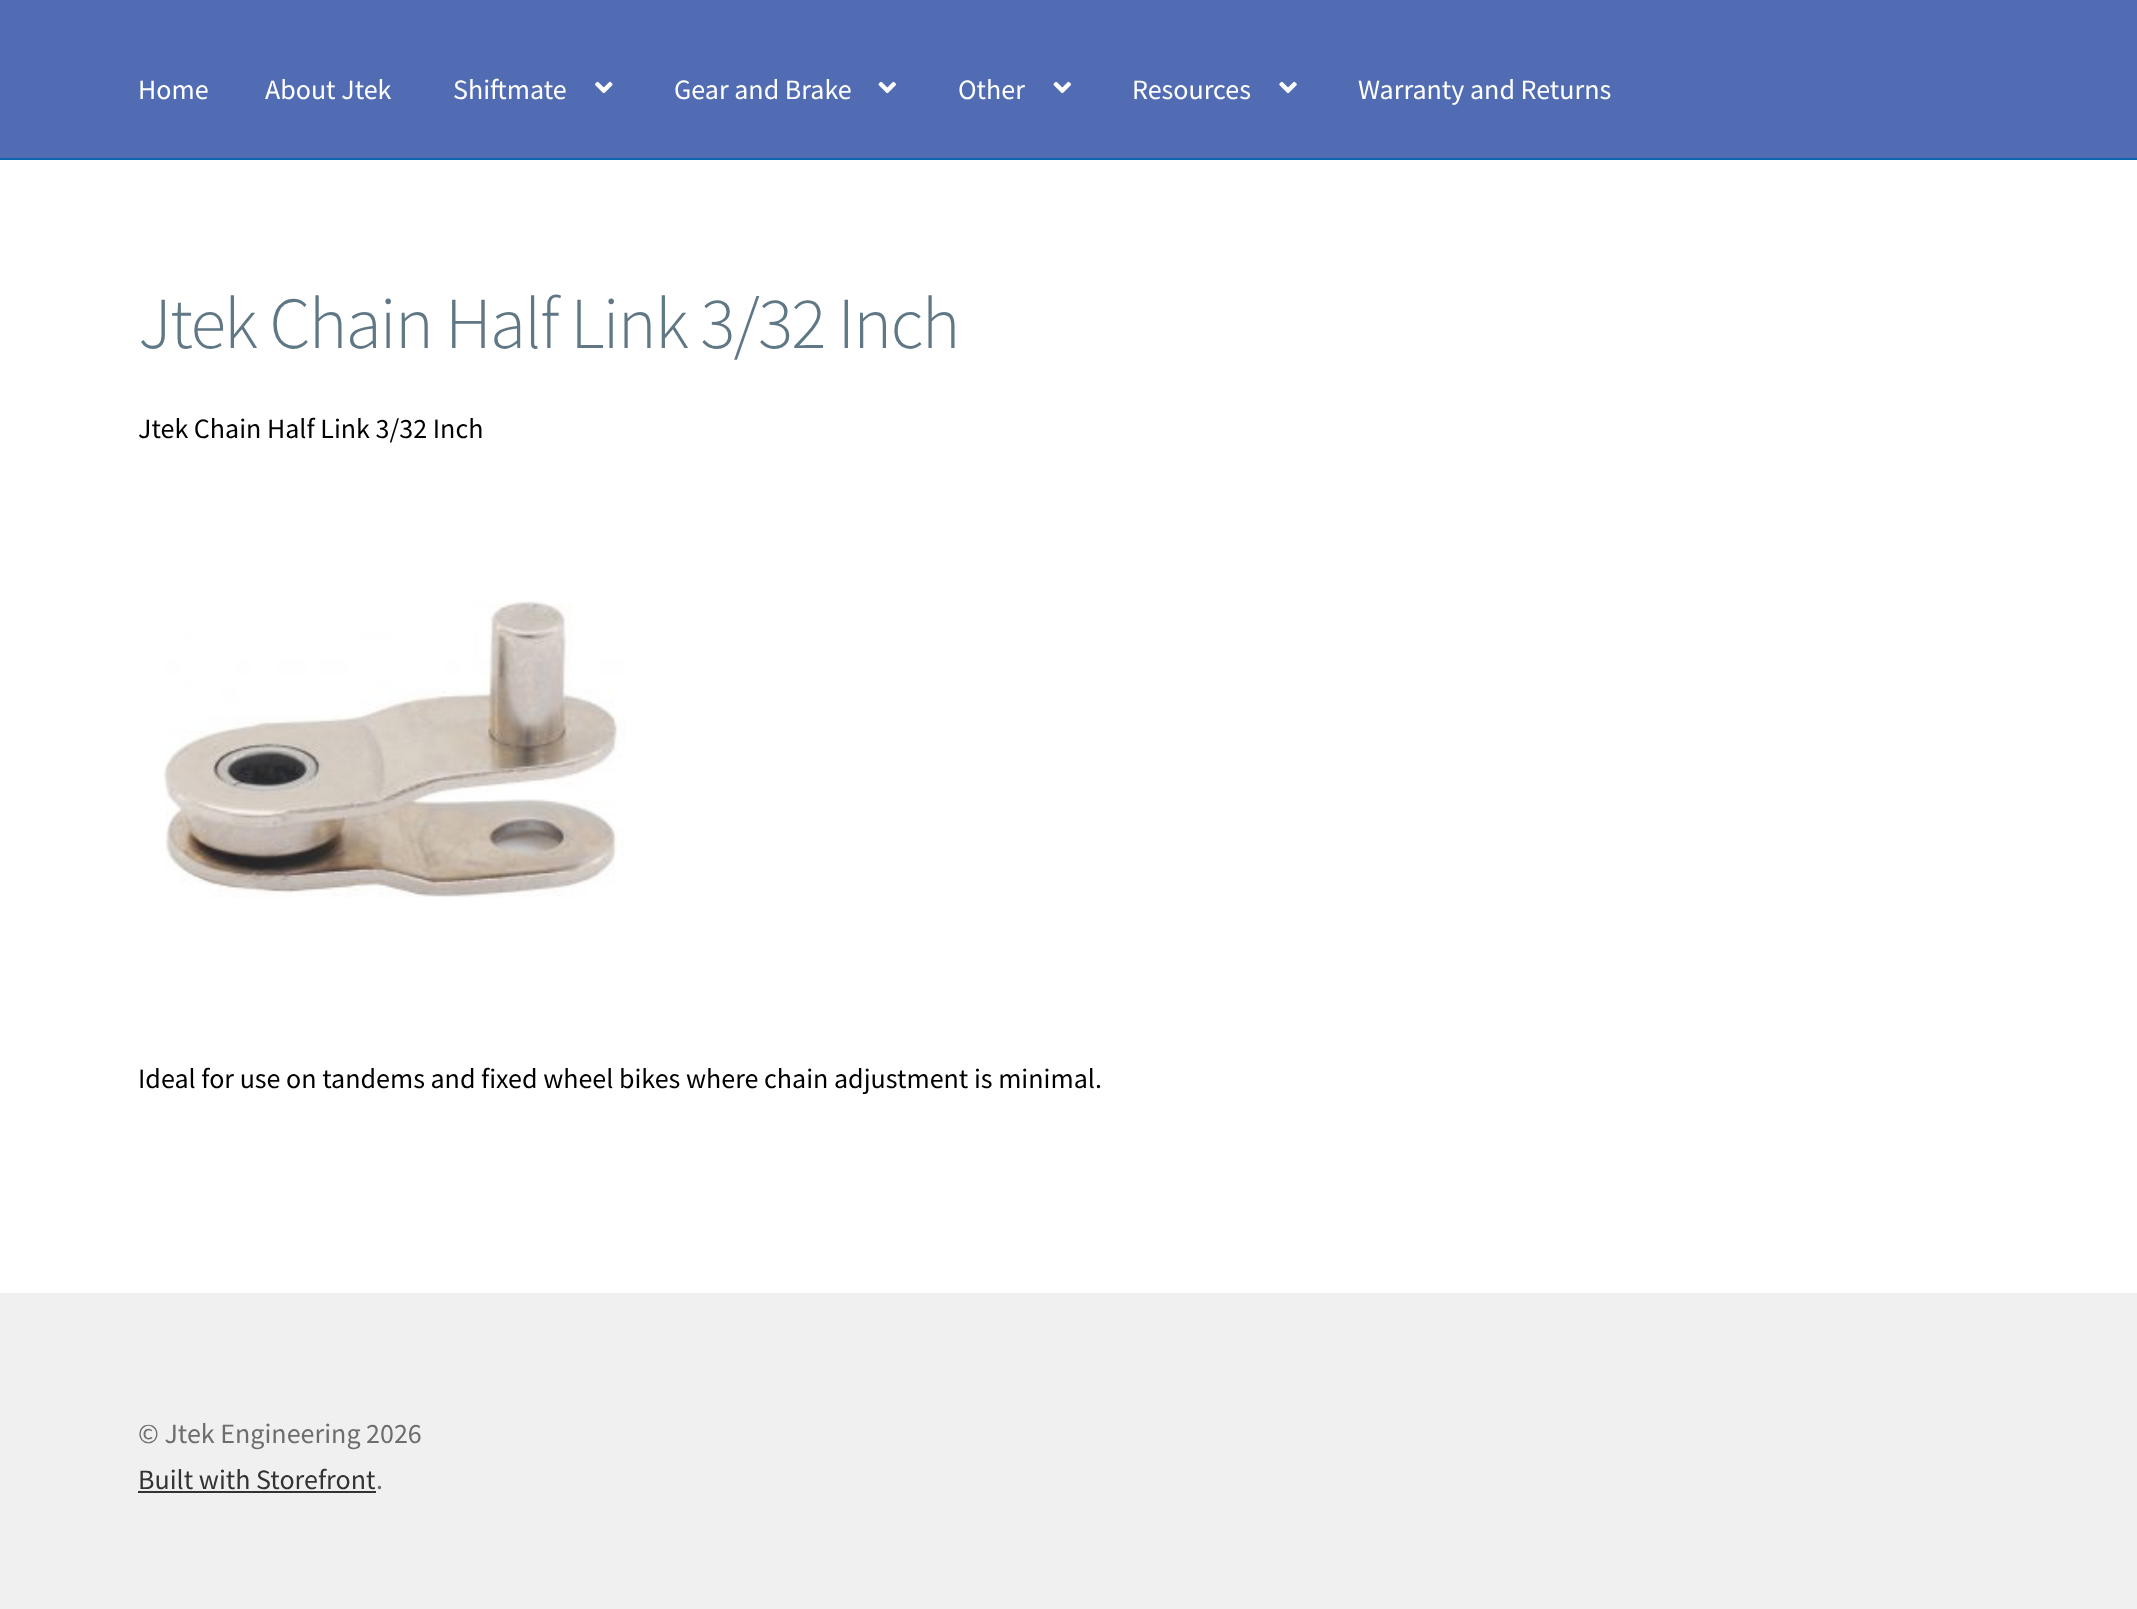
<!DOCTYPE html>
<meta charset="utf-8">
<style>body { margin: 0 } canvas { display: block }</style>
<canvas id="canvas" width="2137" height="1609"></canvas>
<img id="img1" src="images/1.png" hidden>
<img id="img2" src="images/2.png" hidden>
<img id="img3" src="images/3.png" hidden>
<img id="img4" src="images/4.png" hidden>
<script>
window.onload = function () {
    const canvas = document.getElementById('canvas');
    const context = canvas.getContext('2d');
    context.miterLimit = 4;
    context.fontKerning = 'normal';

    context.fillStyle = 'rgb(255, 255, 255)';
    context.fillRect(0, 0, 2137, 1609);
    context.fillStyle = 'rgb(81, 108, 179)';
    context.fillRect(0, 0, 2137, 158);
    context.fillStyle = 'rgb(15, 100, 175)';
    context.fillRect(0, 158, 2137, 2);
    context.drawImage(document.getElementById('img1'), 595, 81, 18, 13);
    context.drawImage(document.getElementById('img2'), 878, 81, 18, 13);
    context.drawImage(document.getElementById('img2'), 1053, 81, 18, 13);
    context.drawImage(document.getElementById('img3'), 1279, 81, 18, 13);
    context.drawImage(document.getElementById('img4'), 164, 601, 462, 297);
    context.fillStyle = 'rgb(240, 240, 240)';
    context.fillRect(0, 1293, 2137, 316);
    context.fillStyle = 'rgb(51, 51, 51)';
    context.fillRect(138, 1491, 238, 2);
    context.font = '28px Source Sans Pro';
    context.fillStyle = 'rgb(255, 255, 255)';
    context.fillText('Home', 138, 99);
    context.fillText('About Jtek', 265, 99);
    context.fillText('Shiftmate', 453, 99);
    context.fillText('Gear and Brake', 674, 99);
    context.fillText('Other', 958, 99);
    context.fillText('Resources', 1132, 99);
    context.fillText('Warranty and Returns', 1358, 99);
    context.letterSpacing = '-1.75px';
    context.font = '300 73.25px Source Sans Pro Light';
    context.fillStyle = 'rgb(96, 120, 134)';
    context.fillText('Jtek Chain Half Link 3/32 Inch', 138, 348);
    context.letterSpacing = '0px';
    context.font = '28px Source Sans Pro';
    context.fillStyle = 'rgb(0, 0, 0)';
    context.fillText('Jtek Chain Half Link 3/32 Inch', 138, 438);
    context.fillText('Ideal for use on tandems and fixed wheel bikes where chain adjustment is minimal.', 138, 1088);
    context.fillStyle = 'rgb(109, 109, 109)';
    context.fillText('© Jtek Engineering 2026', 138, 1443);
    context.fillStyle = 'rgb(51, 51, 51)';
    context.fillText('Built with Storefront', 138, 1489);
    context.fillStyle = 'rgb(109, 109, 109)';
    context.fillText('.', 376, 1489);
};
</script>
